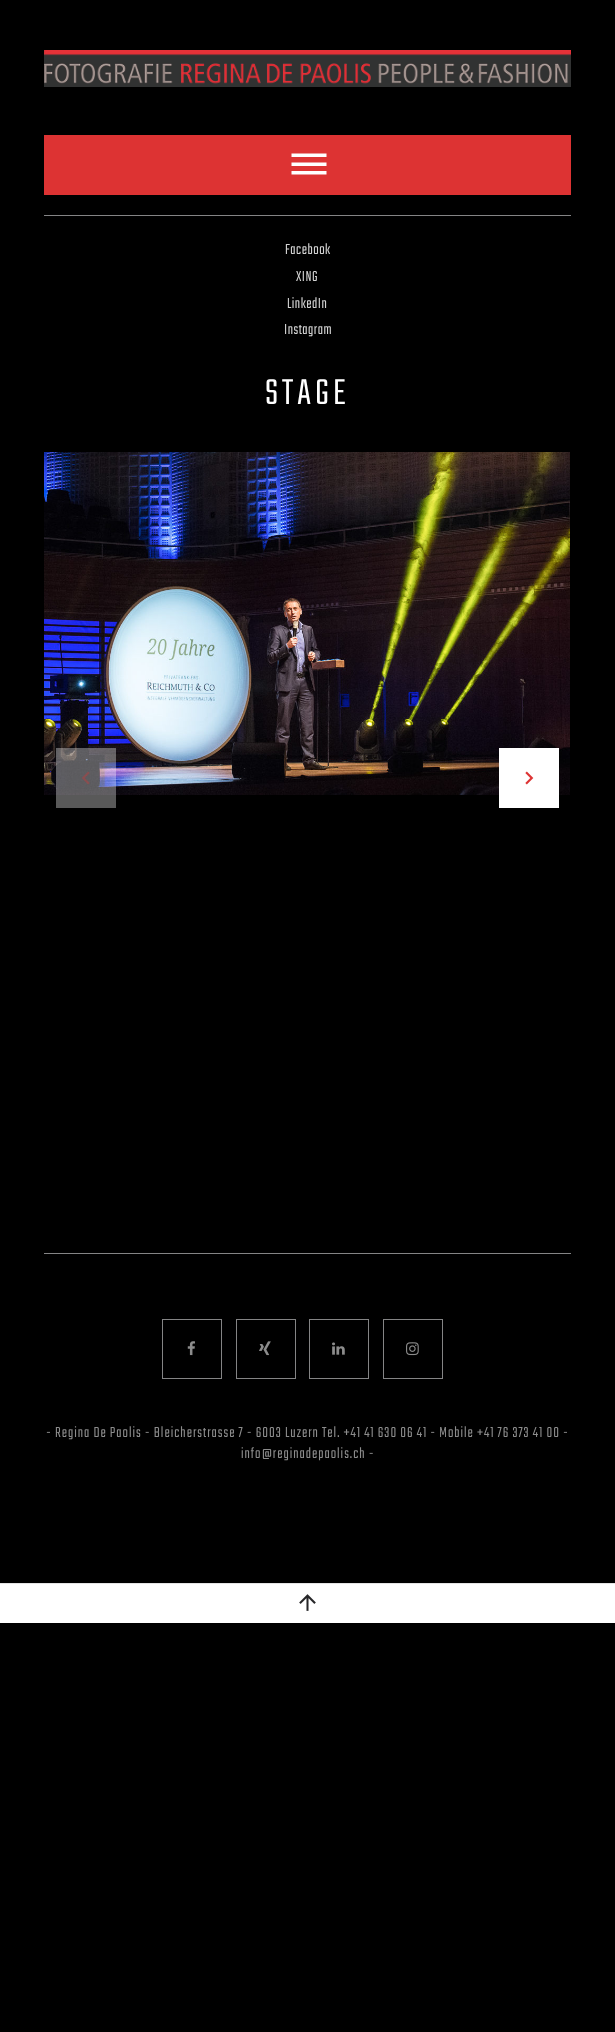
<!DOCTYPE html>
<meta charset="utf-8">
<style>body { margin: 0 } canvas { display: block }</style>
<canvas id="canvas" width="615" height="2032"></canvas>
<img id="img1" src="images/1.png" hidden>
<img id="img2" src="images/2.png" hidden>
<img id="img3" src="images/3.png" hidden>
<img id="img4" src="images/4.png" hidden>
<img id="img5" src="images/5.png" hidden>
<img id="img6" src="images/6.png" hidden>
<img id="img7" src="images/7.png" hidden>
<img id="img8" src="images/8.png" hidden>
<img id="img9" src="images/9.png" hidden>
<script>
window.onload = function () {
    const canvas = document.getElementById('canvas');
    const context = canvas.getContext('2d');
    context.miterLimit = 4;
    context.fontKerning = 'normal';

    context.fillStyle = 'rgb(0, 0, 0)';
    context.fillRect(0, 0, 615, 2032);
    context.drawImage(document.getElementById('img1'), 44, 50, 527, 37);
    context.fillStyle = 'rgb(132, 132, 133)';
    context.fillRect(44, 215, 527, 1);
    context.fillStyle = 'rgb(221, 51, 51)';
    context.fillRect(44, 135, 527, 60);
    context.fillStyle = 'rgb(255, 255, 255)';
    context.beginPath();
    context.moveTo(291.5, 153.5);
    context.lineTo(326.5, 153.5);
    context.lineTo(326.5, 157);
    context.lineTo(291.5, 157);
    context.closePath();
    context.moveTo(291.5, 162.5);
    context.lineTo(326.5, 162.5);
    context.lineTo(326.5, 166);
    context.lineTo(291.5, 166);
    context.closePath();
    context.moveTo(291.5, 171);
    context.lineTo(326.5, 171);
    context.lineTo(326.5, 174.5);
    context.lineTo(291.5, 174.5);
    context.closePath();
    context.fill();
    context.drawImage(document.getElementById('img2'), 44, 452, 526, 343);
    context.fillStyle = 'rgba(255, 255, 255, 0.35)';
    context.fillRect(56, 748, 60, 60);
    context.drawImage(document.getElementById('img3'), 82, 771, 8, 14);
    context.fillStyle = 'rgb(255, 255, 255)';
    context.fillRect(499, 748, 60, 60);
    context.drawImage(document.getElementById('img4'), 525, 771, 9, 14);
    context.fillStyle = 'rgb(132, 132, 133)';
    context.fillRect(44, 1253, 527, 1);
    context.strokeStyle = 'rgb(132, 132, 133)';
    context.strokeRect(162.5, 1319.5, 59, 59);
    context.drawImage(document.getElementById('img5'), 187, 1341, 8, 15);
    context.strokeRect(236.5, 1319.5, 59, 59);
    context.drawImage(document.getElementById('img6'), 259, 1341, 12, 15);
    context.strokeRect(309.5, 1319.5, 59, 59);
    context.drawImage(document.getElementById('img7'), 332, 1342, 13, 13);
    context.strokeRect(383.5, 1319.5, 59, 59);
    context.drawImage(document.getElementById('img8'), 406, 1342, 13, 14);
    context.fillStyle = 'rgb(255, 255, 255)';
    context.fillRect(0, 1584, 615, 39);
    context.fillStyle = 'rgb(227, 227, 227)';
    context.fillRect(0, 1583, 615, 1);
    context.drawImage(document.getElementById('img9'), 299, 1594, 17, 17);
    context.letterSpacing = '0.5px';
    context.font = '300 15.95px Teko';
    context.fillStyle = 'rgb(211, 211, 211)';
    context.fillText('Facebook', 285, 254);
    context.fillText('XING', 296, 281);
    context.fillText('LinkedIn', 287, 308);
    context.fillText('Instagram', 284, 334);
    context.letterSpacing = '4px';
    context.font = '300 40px Teko';
    context.fillStyle = 'rgb(255, 255, 255)';
    context.fillText('STAGE', 265, 404);
    context.letterSpacing = '1px';
    context.font = '300 15.95px Teko';
    context.fillStyle = 'rgb(140, 140, 140)';
    context.fillText('- Regina De Paolis - Bleicherstrasse 7 - 6003 Luzern Tel. +41 41 630 06 41 - Mobile +41 76 373 41 00 -', 46, 1437);
    context.fillText('info@reginadepaolis.ch -', 241, 1458);
};
</script>
